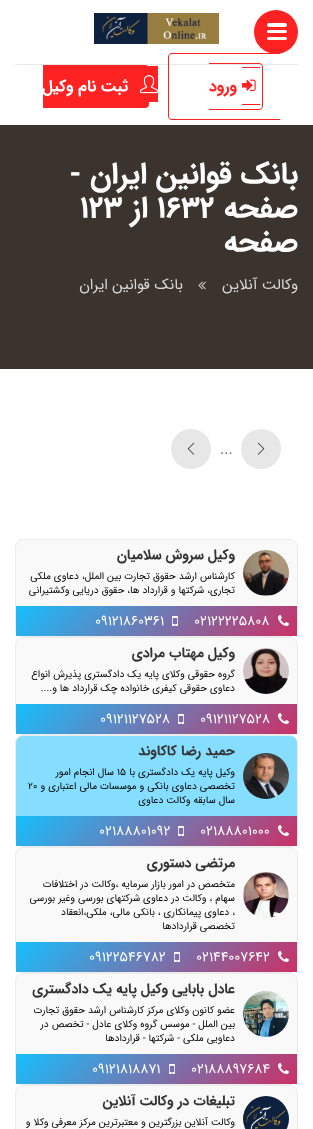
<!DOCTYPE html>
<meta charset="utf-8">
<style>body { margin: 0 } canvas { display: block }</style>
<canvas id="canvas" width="313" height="1129"></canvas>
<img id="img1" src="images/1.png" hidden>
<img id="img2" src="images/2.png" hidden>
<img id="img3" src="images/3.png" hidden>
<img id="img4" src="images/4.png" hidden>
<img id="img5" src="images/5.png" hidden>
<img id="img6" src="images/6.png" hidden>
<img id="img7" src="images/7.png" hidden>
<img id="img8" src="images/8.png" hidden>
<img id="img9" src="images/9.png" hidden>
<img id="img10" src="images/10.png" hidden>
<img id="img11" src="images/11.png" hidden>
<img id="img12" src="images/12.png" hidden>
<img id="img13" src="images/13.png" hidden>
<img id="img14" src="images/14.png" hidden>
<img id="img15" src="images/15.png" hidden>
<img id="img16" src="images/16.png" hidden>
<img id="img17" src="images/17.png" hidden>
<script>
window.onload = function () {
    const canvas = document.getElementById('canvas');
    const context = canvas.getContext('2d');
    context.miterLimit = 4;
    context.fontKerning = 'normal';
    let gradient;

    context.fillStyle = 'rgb(255, 255, 255)';
    context.fillRect(0, 0, 313, 1129);
    context.fillStyle = 'rgb(255, 34, 34)';
    context.beginPath();
    context.arc(276, 32, 22, 0, 2 * Math.PI);
    context.fill();
    context.fillStyle = 'rgb(255, 255, 255)';
    context.beginPath();
    context.roundRect(267, 37, 20, 3, 1.5);
    context.fill();
    context.beginPath();
    context.roundRect(267, 23, 20, 4, 2);
    context.fill();
    context.beginPath();
    context.roundRect(267, 30, 20, 3, 1.5);
    context.fill();
    context.drawImage(document.getElementById('img1'), 94, 13, 125, 31);
    context.fillStyle = 'rgb(232, 232, 232)';
    context.fillRect(15, 64, 283, 1);
    context.fillStyle = 'rgb(255, 34, 34)';
    context.beginPath();
    context.moveTo(172, 53);
    context.lineTo(280, 53);
    context.lineTo(280, 120);
    context.lineTo(172, 120);
    context.bezierCurveTo(170, 120, 168, 118, 168, 116);
    context.lineTo(168, 57);
    context.bezierCurveTo(168, 55, 170, 53, 172, 53);
    context.closePath();
    context.moveTo(172, 54);
    context.lineTo(280, 54);
    context.lineTo(280, 119);
    context.lineTo(172, 119);
    context.bezierCurveTo(170, 119, 169, 118, 169, 116);
    context.lineTo(169, 57);
    context.bezierCurveTo(169, 55, 170, 54, 172, 54);
    context.closePath();
    context.fill('evenodd');
    context.fillRect(242, 67, 18, 1);
    context.fillRect(242, 104, 18, 1);
    context.beginPath();
    context.moveTo(209, 63);
    context.lineTo(259, 63);
    context.bezierCurveTo(261, 63, 263, 65, 263, 67);
    context.lineTo(263, 106);
    context.bezierCurveTo(263, 108, 261, 110, 259, 110);
    context.lineTo(209, 110);
    context.closePath();
    context.moveTo(209, 64);
    context.lineTo(259, 64);
    context.bezierCurveTo(261, 64, 262, 65, 262, 67);
    context.lineTo(262, 106);
    context.bezierCurveTo(262, 108, 261, 109, 259, 109);
    context.lineTo(209, 109);
    context.closePath();
    context.fill('evenodd');
    context.drawImage(document.getElementById('img2'), 242, 79, 14, 12);
    context.fillRect(147, 66, 11, 36);
    context.beginPath();
    context.roundRect(43, 65, 106, 43, [0, 4, 4, 0]);
    context.fill();
    context.drawImage(document.getElementById('img3'), 140, 75, 18, 19);
    context.fillStyle = 'rgb(59, 52, 46)';
    context.fillRect(0, 125, 313, 244);
    context.drawImage(document.getElementById('img4'), 198, 281, 8, 9);
    context.fillStyle = 'rgb(231, 231, 231)';
    context.beginPath();
    context.arc(261, 449, 20, 0, 2 * Math.PI);
    context.fill();
    context.drawImage(document.getElementById('img5'), 257, 442, 8, 13);
    context.beginPath();
    context.arc(191, 449, 20, 0, 2 * Math.PI);
    context.fill();
    context.drawImage(document.getElementById('img6'), 187, 442, 8, 13);
    context.fillStyle = 'rgb(249, 249, 249)';
    context.beginPath();
    context.roundRect(15.5, 539.5, 282, 97, 7.5);
    context.fill();
    context.strokeStyle = 'rgb(236, 236, 236)';
    context.stroke();
    context.drawImage(document.getElementById('img7'), 243, 550, 46, 46);
    gradient = context.createLinearGradient(79, 543, 234, 699);
    gradient.addColorStop(0, 'rgb(22, 191, 253)');
    gradient.addColorStop(1, 'rgb(203, 48, 102)');
    context.fillStyle = gradient;
    context.fillRect(16, 606, 281, 30);
    context.drawImage(document.getElementById('img8'), 278, 615, 11, 11);
    context.drawImage(document.getElementById('img9'), 172, 616, 6, 10);
    context.fillStyle = 'rgb(249, 249, 249)';
    context.beginPath();
    context.roundRect(15.5, 637.5, 282, 97, 7.5);
    context.fill();
    context.stroke();
    context.drawImage(document.getElementById('img10'), 243, 648, 46, 46);
    gradient = context.createLinearGradient(79, 641, 234, 797);
    gradient.addColorStop(0, 'rgb(22, 191, 253)');
    gradient.addColorStop(1, 'rgb(203, 48, 102)');
    context.fillStyle = gradient;
    context.fillRect(16, 704, 281, 30);
    context.drawImage(document.getElementById('img8'), 278, 713, 11, 11);
    context.drawImage(document.getElementById('img11'), 178, 714, 6, 10);
    context.fillStyle = 'rgb(133, 221, 255)';
    context.beginPath();
    context.roundRect(15.5, 735.5, 282, 111, 7.5);
    context.fill();
    context.stroke();
    context.drawImage(document.getElementById('img12'), 243, 753, 46, 46);
    gradient = context.createLinearGradient(79, 753, 234, 909);
    gradient.addColorStop(0, 'rgb(22, 191, 253)');
    gradient.addColorStop(1, 'rgb(203, 48, 102)');
    context.fillStyle = gradient;
    context.fillRect(16, 816, 281, 30);
    context.drawImage(document.getElementById('img8'), 278, 825, 11, 11);
    context.drawImage(document.getElementById('img11'), 178, 826, 6, 10);
    context.fillStyle = 'rgb(249, 249, 249)';
    context.beginPath();
    context.roundRect(15.5, 847.5, 282, 125, 7.5);
    context.fill();
    context.stroke();
    context.drawImage(document.getElementById('img13'), 243, 872, 46, 46);
    gradient = context.createLinearGradient(79, 879, 234, 1035);
    gradient.addColorStop(0, 'rgb(22, 191, 253)');
    gradient.addColorStop(1, 'rgb(203, 48, 102)');
    context.fillStyle = gradient;
    context.fillRect(16, 942, 281, 30);
    context.drawImage(document.getElementById('img8'), 278, 951, 11, 11);
    context.drawImage(document.getElementById('img14'), 174, 952, 6, 10);
    context.fillStyle = 'rgb(249, 249, 249)';
    context.beginPath();
    context.roundRect(15.5, 973.5, 282, 111, 7.5);
    context.fill();
    context.stroke();
    context.drawImage(document.getElementById('img15'), 243, 991, 46, 46);
    gradient = context.createLinearGradient(79, 991, 234, 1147);
    gradient.addColorStop(0, 'rgb(22, 191, 253)');
    gradient.addColorStop(1, 'rgb(203, 48, 102)');
    context.fillStyle = gradient;
    context.fillRect(16, 1054, 281, 30);
    context.drawImage(document.getElementById('img8'), 278, 1063, 11, 11);
    context.drawImage(document.getElementById('img16'), 169, 1064, 6, 10);
    context.fillStyle = 'rgb(249, 249, 249)';
    context.beginPath();
    context.roundRect(15.5, 1085.5, 282, 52, 7.5);
    context.fill();
    context.stroke();
    context.drawImage(document.getElementById('img17'), 243, 1096, 46, 33);
    context.direction = 'rtl';
    context.font = 'bold 16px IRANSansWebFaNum';
    context.fillStyle = 'rgb(255, 34, 34)';
    context.fillText('ورود', 237, 91);
    context.fillStyle = 'rgb(255, 255, 255)';
    context.fillText('ثبت نام وکیل', 128, 91);
    context.font = 'bold 30px IRANSansWebFaNum';
    context.fillText('بانک قوانین ایران -', 298, 183);
    context.fillText('صفحه', 298, 217);
    context.direction = 'ltr';
    context.fillText('1632', 157, 217);
    context.direction = 'rtl';
    context.fillText('از', 148, 217);
    context.direction = 'ltr';
    context.fillText('123', 80, 217);
    context.direction = 'rtl';
    context.fillText('صفحه', 298, 251);
    context.font = '15px IRANSansWebFaNum';
    context.fillStyle = 'rgb(217, 217, 217)';
    context.fillText('وکالت آنلاین', 298, 289);
    context.fillText('بانک قوانین ایران', 183, 289);
    context.direction = 'ltr';
    context.fillStyle = 'rgb(112, 112, 112)';
    context.fillText('...', 220, 454);
    context.direction = 'rtl';
    context.font = 'bold 14px IRANSansWebFaNum';
    context.fillStyle = 'rgb(51, 51, 51)';
    context.fillText('وکیل سروش سلامیان', 235, 559);
    context.font = '10px IRANSansWebFaNum';
    context.fillStyle = 'rgb(4, 0, 0)';
    context.fillText('کارشناس ارشد حقوق تجارت بین الملل، دعاوى ملکى', 235, 579);
    context.fillText('تجارى، شرکتها و قرارداد ها، حقوق دریایى وکشتیرانى', 235, 593);
    context.direction = 'ltr';
    context.font = '14px IRANSansWebFaNum';
    context.fillStyle = 'rgb(255, 255, 255)';
    context.fillText('02122225808', 194, 625);
    context.fillText('09121860361', 95, 625);
    context.direction = 'rtl';
    context.font = 'bold 14px IRANSansWebFaNum';
    context.fillStyle = 'rgb(51, 51, 51)';
    context.fillText('وکیل مهتاب مرادی', 235, 657);
    context.font = '10px IRANSansWebFaNum';
    context.fillStyle = 'rgb(4, 0, 0)';
    context.fillText('گروه حقوقی وکلای پایه یک دادگستری پذیرش انواع', 235, 677);
    context.fillText('دعاوی حقوقی کیفری خانواده چک قرارداد ها و....', 235, 691);
    context.direction = 'ltr';
    context.font = '14px IRANSansWebFaNum';
    context.fillStyle = 'rgb(255, 255, 255)';
    context.fillText('09121127528', 200, 723);
    context.fillText('09121127528', 100, 723);
    context.direction = 'rtl';
    context.font = 'bold 14px IRANSansWebFaNum';
    context.fillStyle = 'rgb(51, 51, 51)';
    context.fillText('حمید رضا کاکاوند', 235, 755);
    context.font = '10px IRANSansWebFaNum';
    context.fillStyle = 'rgb(4, 0, 0)';
    context.fillText('وکیل پایه یک دادگستری با', 235, 775);
    context.direction = 'ltr';
    context.fillText('15', 117, 775);
    context.direction = 'rtl';
    context.fillText('سال انجام امور', 114, 775);
    context.fillText('تخصصی دعاوی بانکی و موسسات مالی اعتباری و', 235, 789);
    context.direction = 'ltr';
    context.fillText('20', 28, 789);
    context.direction = 'rtl';
    context.fillText('سال سابقه وکالت دعاوی', 235, 803);
    context.direction = 'ltr';
    context.font = '14px IRANSansWebFaNum';
    context.fillStyle = 'rgb(255, 255, 255)';
    context.fillText('02188801000', 200, 835);
    context.fillText('02188801092', 99, 835);
    context.direction = 'rtl';
    context.font = 'bold 14px IRANSansWebFaNum';
    context.fillStyle = 'rgb(51, 51, 51)';
    context.fillText('مرتضی دستوری', 235, 867);
    context.font = '10px IRANSansWebFaNum';
    context.fillStyle = 'rgb(4, 0, 0)';
    context.fillText('متخصص در امور بازار سرمایه ،وکالت در اختلافات', 235, 887);
    context.fillText('سهام ، وکالت در دعاوی شرکتهای بورسی وغیر بورسی', 235, 901);
    context.fillText('، دعاوی پیمانکاری ، بانکی مالی، ملکی،انعقاد', 235, 915);
    context.fillText('تخصصی قراردادها', 235, 929);
    context.direction = 'ltr';
    context.font = '14px IRANSansWebFaNum';
    context.fillStyle = 'rgb(255, 255, 255)';
    context.fillText('02144007642', 196, 961);
    context.fillText('09122546782', 89, 961);
    context.direction = 'rtl';
    context.font = 'bold 14px IRANSansWebFaNum';
    context.fillStyle = 'rgb(51, 51, 51)';
    context.fillText('عادل بابایی وکیل پایه یک دادگستری', 235, 993);
    context.font = '10px IRANSansWebFaNum';
    context.fillStyle = 'rgb(4, 0, 0)';
    context.fillText('عضو کانون وکلای مرکز کارشناس ارشد حقوق تجارت', 235, 1013);
    context.fillText('بین الملل - موسس گروه وکلای عادل - تخصص در', 235, 1027);
    context.fillText('دعاویی ملکی - شرکتها - قراردادها', 235, 1041);
    context.direction = 'ltr';
    context.font = '14px IRANSansWebFaNum';
    context.fillStyle = 'rgb(255, 255, 255)';
    context.fillText('02188897684', 191, 1073);
    context.fillText('09121818871', 92, 1073);
    context.direction = 'rtl';
    context.font = 'bold 14px IRANSansWebFaNum';
    context.fillStyle = 'rgb(51, 51, 51)';
    context.fillText('تبلیغات در وکالت آنلاین', 235, 1105);
    context.font = '10px IRANSansWebFaNum';
    context.fillStyle = 'rgb(4, 0, 0)';
    context.fillText('وکالت آنلاین بزرگترین و معتبرترین مرکز معرفی وکلا و', 235, 1125);
};
</script>
